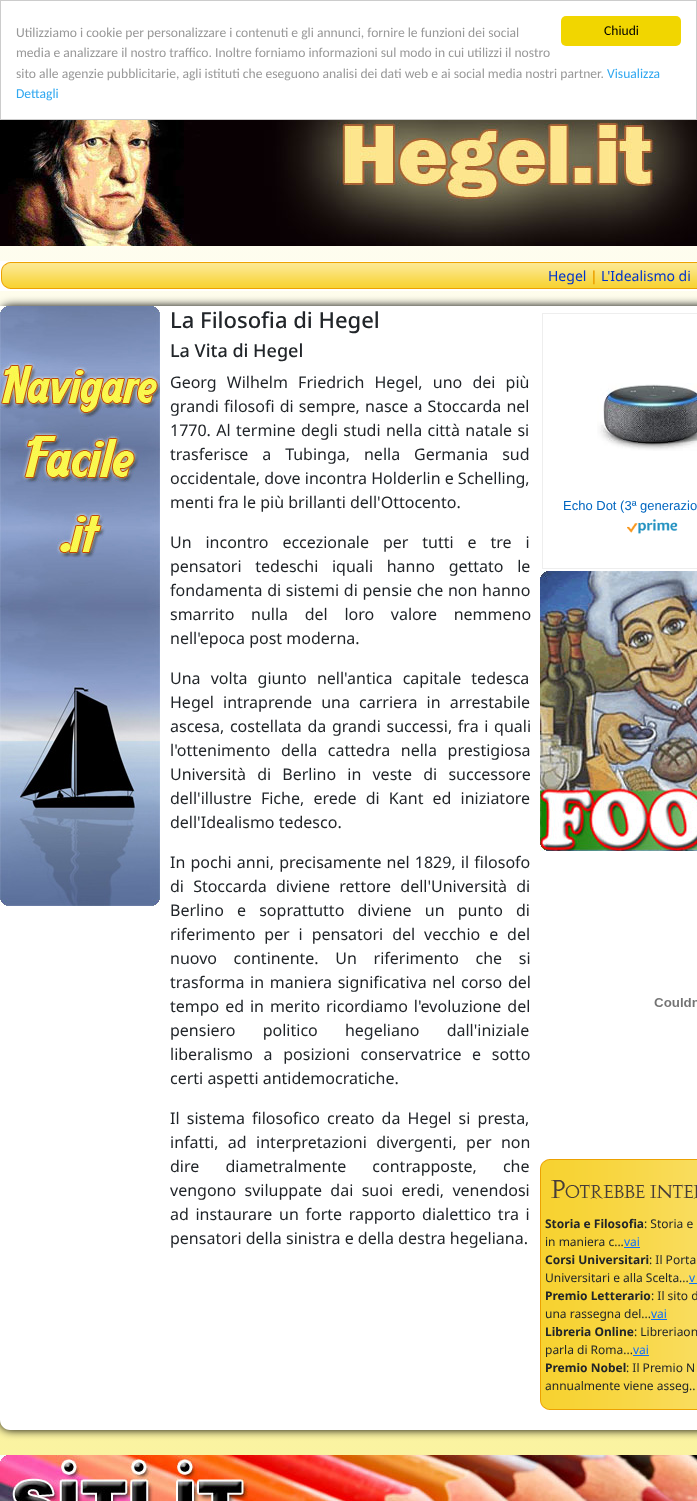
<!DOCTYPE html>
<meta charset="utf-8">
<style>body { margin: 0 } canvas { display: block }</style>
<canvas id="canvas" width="697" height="1501"></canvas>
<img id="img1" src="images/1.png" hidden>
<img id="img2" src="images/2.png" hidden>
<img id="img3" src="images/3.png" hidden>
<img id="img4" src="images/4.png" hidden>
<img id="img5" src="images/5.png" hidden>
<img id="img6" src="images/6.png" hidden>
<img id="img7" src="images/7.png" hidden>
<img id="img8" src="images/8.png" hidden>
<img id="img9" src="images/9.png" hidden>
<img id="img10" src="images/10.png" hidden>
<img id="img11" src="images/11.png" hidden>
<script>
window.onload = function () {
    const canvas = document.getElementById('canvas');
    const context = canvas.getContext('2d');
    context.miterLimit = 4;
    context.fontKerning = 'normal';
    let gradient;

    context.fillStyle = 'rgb(255, 255, 255)';
    context.fillRect(0, 0, 697, 1501);
    gradient = context.createLinearGradient(348, 0, 349, 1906);
    gradient.addColorStop(0, 'rgb(255, 255, 255)');
    gradient.addColorStop(1, 'rgb(249, 239, 131)');
    context.fillStyle = gradient;
    context.fillRect(0, 246, 697, 1209);
    context.strokeStyle = 'rgb(204, 204, 204)';
    context.strokeRect(0.5, 0.5, 696, 119);
    context.fillStyle = 'rgb(241, 214, 0)';
    context.beginPath();
    context.roundRect(561, 16, 120, 30, 5);
    context.fill();
    context.drawImage(document.getElementById('img1'), 0, 120, 697, 126);
    context.fillStyle = 'rgb(255, 255, 254)';
    context.fillRect(0, 261, 697, 30);
    context.drawImage(document.getElementById('img2'), 1, 262, 696, 27);
    context.fillStyle = 'rgb(0, 0, 0)';
    context.filter = 'blur(5px)';
    context.beginPath();
    context.roundRect(0, 306, 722, 1124, 10);
    context.fill();
    context.filter = 'none';
    context.fillStyle = 'rgb(255, 255, 255)';
    context.beginPath();
    context.moveTo(0, 306);
    context.lineTo(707, 306);
    context.lineTo(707, 1420);
    context.bezierCurveTo(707, 1425.5, 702.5, 1430, 697, 1430);
    context.lineTo(10, 1430);
    context.bezierCurveTo(4.5, 1430, 0, 1425.5, 0, 1420);
    context.closePath();
    context.fill();
    context.drawImage(document.getElementById('img3'), 0, 306, 160, 600);
    context.strokeStyle = 'rgb(238, 238, 238)';
    context.strokeRect(542.5, 313.5, 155, 255);
    context.drawImage(document.getElementById('img4'), 597, 383, 100, 68);
    context.drawImage(document.getElementById('img5'), 627, 519, 51, 15);
    context.drawImage(document.getElementById('img6'), 540, 571, 157, 280);
    context.drawImage(document.getElementById('img7'), 654, 998, 43, 9);
    context.drawImage(document.getElementById('img8'), 540, 1159, 157, 56);
    context.drawImage(document.getElementById('img9'), 540, 1215, 157, 180);
    context.fillStyle = 'rgb(13, 110, 253)';
    context.fillRect(624, 1247, 16, 1);
    context.fillRect(689, 1283, 8, 1);
    context.fillRect(651, 1319, 16, 1);
    context.fillRect(633, 1355, 16, 1);
    context.drawImage(document.getElementById('img10'), 540, 1395, 157, 15);
    context.drawImage(document.getElementById('img11'), 0, 1455, 697, 46);
    context.font = '13.6px Carlito';
    context.fillStyle = 'rgb(0, 0, 0)';
    context.fillText('Chiudi', 604, 35);
    context.fillStyle = 'rgb(153, 153, 153)';
    context.fillText('Utilizziamo i cookie per personalizzare i contenuti e gli annunci, fornire le funzioni dei social', 16, 37);
    context.fillText('media e analizzare il nostro traffico. Inoltre forniamo informazioni sul modo in cui utilizzi il nostro', 16, 57);
    context.fillText('sito alle agenzie pubblicitarie, agli istituti che eseguono analisi dei dati web e ai social media nostri partner.', 16, 78);
    context.fillStyle = 'rgb(49, 168, 240)';
    context.fillText('Visualizza', 607, 78);
    context.fillText('Dettagli', 16, 98);
    context.font = '14px Noto Sans';
    context.fillStyle = 'rgb(0, 51, 204)';
    context.fillText('Hegel', 548, 281);
    context.font = 'bold 14px Noto Sans';
    context.fillStyle = 'rgb(236, 161, 1)';
    context.fillText('|', 590, 281);
    context.font = '14px Noto Sans';
    context.fillStyle = 'rgb(0, 51, 204)';
    context.fillText('L\'Idealismo di', 601, 281);
    context.font = '500 22px Noto Sans';
    context.fillStyle = 'rgb(33, 37, 41)';
    context.fillText('La Filosofia di Hegel', 170, 328);
    context.font = '500 18px Noto Sans';
    context.fillText('La Vita di Hegel', 170, 357);
    context.wordSpacing = '6px';
    context.font = '16px Noto Sans';
    context.fillText('Georg Wilhelm Friedrich Hegel, uno dei più', 170, 388);
    context.wordSpacing = '1px';
    context.fillText('grandi filosofi di sempre, nasce a Stoccarda nel', 170, 412);
    context.wordSpacing = '1.25px';
    context.fillText('1770. Al termine degli studi nella città natale si', 170, 436);
    context.wordSpacing = '9.75px';
    context.fillText('trasferisce a Tubinga, nella Germania sud', 170, 460);
    context.wordSpacing = '0px';
    context.fillText('occidentale, dove incontra Holderlin e Schelling,', 170, 484);
    context.fillText('menti fra le più brillanti dell\'Ottocento.', 170, 508);
    context.wordSpacing = '9.75px';
    context.fillText('Un incontro eccezionale per tutti e tre i', 170, 548);
    context.wordSpacing = '9.5px';
    context.fillText('pensatori tedeschi iquali hanno gettato le', 170, 572);
    context.wordSpacing = '0.5px';
    context.fillText('fondamenta di sistemi di pensie che non hanno', 170, 596);
    context.wordSpacing = '12.5px';
    context.fillText('smarrito nulla del loro valore nemmeno', 170, 620);
    context.wordSpacing = '0px';
    context.fillText('nell\'epoca post moderna.', 170, 644);
    context.wordSpacing = '6px';
    context.fillText('Una volta giunto nell\'antica capitale tedesca', 170, 684);
    context.wordSpacing = '5px';
    context.fillText('Hegel intraprende una carriera in arrestabile', 170, 708);
    context.wordSpacing = '1.5px';
    context.fillText('ascesa, costellata da grandi successi, fra i quali', 170, 732);
    context.wordSpacing = '6.5px';
    context.fillText('l\'ottenimento della cattedra nella prestigiosa', 170, 756);
    context.wordSpacing = '7px';
    context.fillText('Università di Berlino in veste di successore', 170, 780);
    context.wordSpacing = '5px';
    context.fillText('dell\'illustre Fiche, erede di Kant ed iniziatore', 170, 804);
    context.wordSpacing = '0px';
    context.fillText('dell\'Idealismo tedesco.', 170, 828);
    context.wordSpacing = '1px';
    context.fillText('In pochi anni, precisamente nel 1829, il filosofo', 170, 868);
    context.wordSpacing = '5px';
    context.fillText('di Stoccarda diviene rettore dell\'Università di', 170, 892);
    context.wordSpacing = '9px';
    context.fillText('Berlino e soprattutto diviene un punto di', 170, 916);
    context.wordSpacing = '4.75px';
    context.fillText('riferimento per i pensatori del vecchio e del', 170, 940);
    context.wordSpacing = '12.5px';
    context.fillText('nuovo continente. Un riferimento che si', 170, 964);
    context.wordSpacing = '1.5px';
    context.fillText('trasforma in maniera significativa nel corso del', 170, 988);
    context.wordSpacing = '1.75px';
    context.fillText('tempo ed in merito ricordiamo l\'evoluzione del', 170, 1012);
    context.wordSpacing = '23px';
    context.fillText('pensiero politico hegeliano dall\'iniziale', 170, 1036);
    context.wordSpacing = '6.5px';
    context.fillText('liberalismo a posizioni conservatrice e sotto', 170, 1060);
    context.wordSpacing = '0px';
    context.fillText('certi aspetti antidemocratiche.', 170, 1084);
    context.wordSpacing = '3px';
    context.fillText('Il sistema filosofico creato da Hegel si presta,', 170, 1124);
    context.wordSpacing = '5.25px';
    context.fillText('infatti, ad interpretazioni divergenti, per non', 170, 1148);
    context.wordSpacing = '22px';
    context.fillText('dire diametralmente contrapposte, che', 170, 1172);
    context.wordSpacing = '4.25px';
    context.fillText('vengono sviluppate dai suoi eredi, venendosi', 170, 1196);
    context.wordSpacing = '2.5px';
    context.fillText('ad instaurare un forte rapporto dialettico tra i', 170, 1220);
    context.wordSpacing = '0px';
    context.fillText('pensatori della sinistra e della destra hegeliana.', 170, 1244);
    context.font = '13px Liberation Sans';
    context.fillStyle = 'rgb(0, 102, 192)';
    context.fillText('Echo Dot (3ª generazio', 563, 510);
    context.font = 'bold 12px Noto Sans';
    context.fillStyle = 'rgb(33, 37, 41)';
    context.fillText('Storia e Filosofia', 545, 1228);
    context.font = '12px Noto Sans';
    context.fillText(': Storia e', 644, 1228);
    context.fillText('in maniera c...', 545, 1246);
    context.fillStyle = 'rgb(13, 110, 253)';
    context.fillText('vai', 624, 1246);
    context.font = 'bold 12px Noto Sans';
    context.fillStyle = 'rgb(33, 37, 41)';
    context.fillText('Corsi Universitari', 545, 1264);
    context.font = '12px Noto Sans';
    context.fillText(': Il Porta', 649, 1264);
    context.fillText('Universitari e alla Scelta...', 545, 1282);
    context.fillStyle = 'rgb(13, 110, 253)';
    context.fillText('v', 689, 1282);
    context.font = 'bold 12px Noto Sans';
    context.fillStyle = 'rgb(33, 37, 41)';
    context.fillText('Premio Letterario', 545, 1300);
    context.font = '12px Noto Sans';
    context.fillText(': Il sito d', 651, 1300);
    context.fillText('una rassegna del...', 545, 1318);
    context.fillStyle = 'rgb(13, 110, 253)';
    context.fillText('vai', 651, 1318);
    context.font = 'bold 12px Noto Sans';
    context.fillStyle = 'rgb(33, 37, 41)';
    context.fillText('Libreria Online', 545, 1336);
    context.font = '12px Noto Sans';
    context.fillText(': Libreriaon', 634, 1336);
    context.fillText('parla di Roma...', 545, 1354);
    context.fillStyle = 'rgb(13, 110, 253)';
    context.fillText('vai', 633, 1354);
    context.font = 'bold 12px Noto Sans';
    context.fillStyle = 'rgb(33, 37, 41)';
    context.fillText('Premio Nobel', 545, 1372);
    context.font = '12px Noto Sans';
    context.fillText(': Il Premio N', 626, 1372);
    context.fillText('annualmente viene asseg..', 545, 1390);
};
</script>
